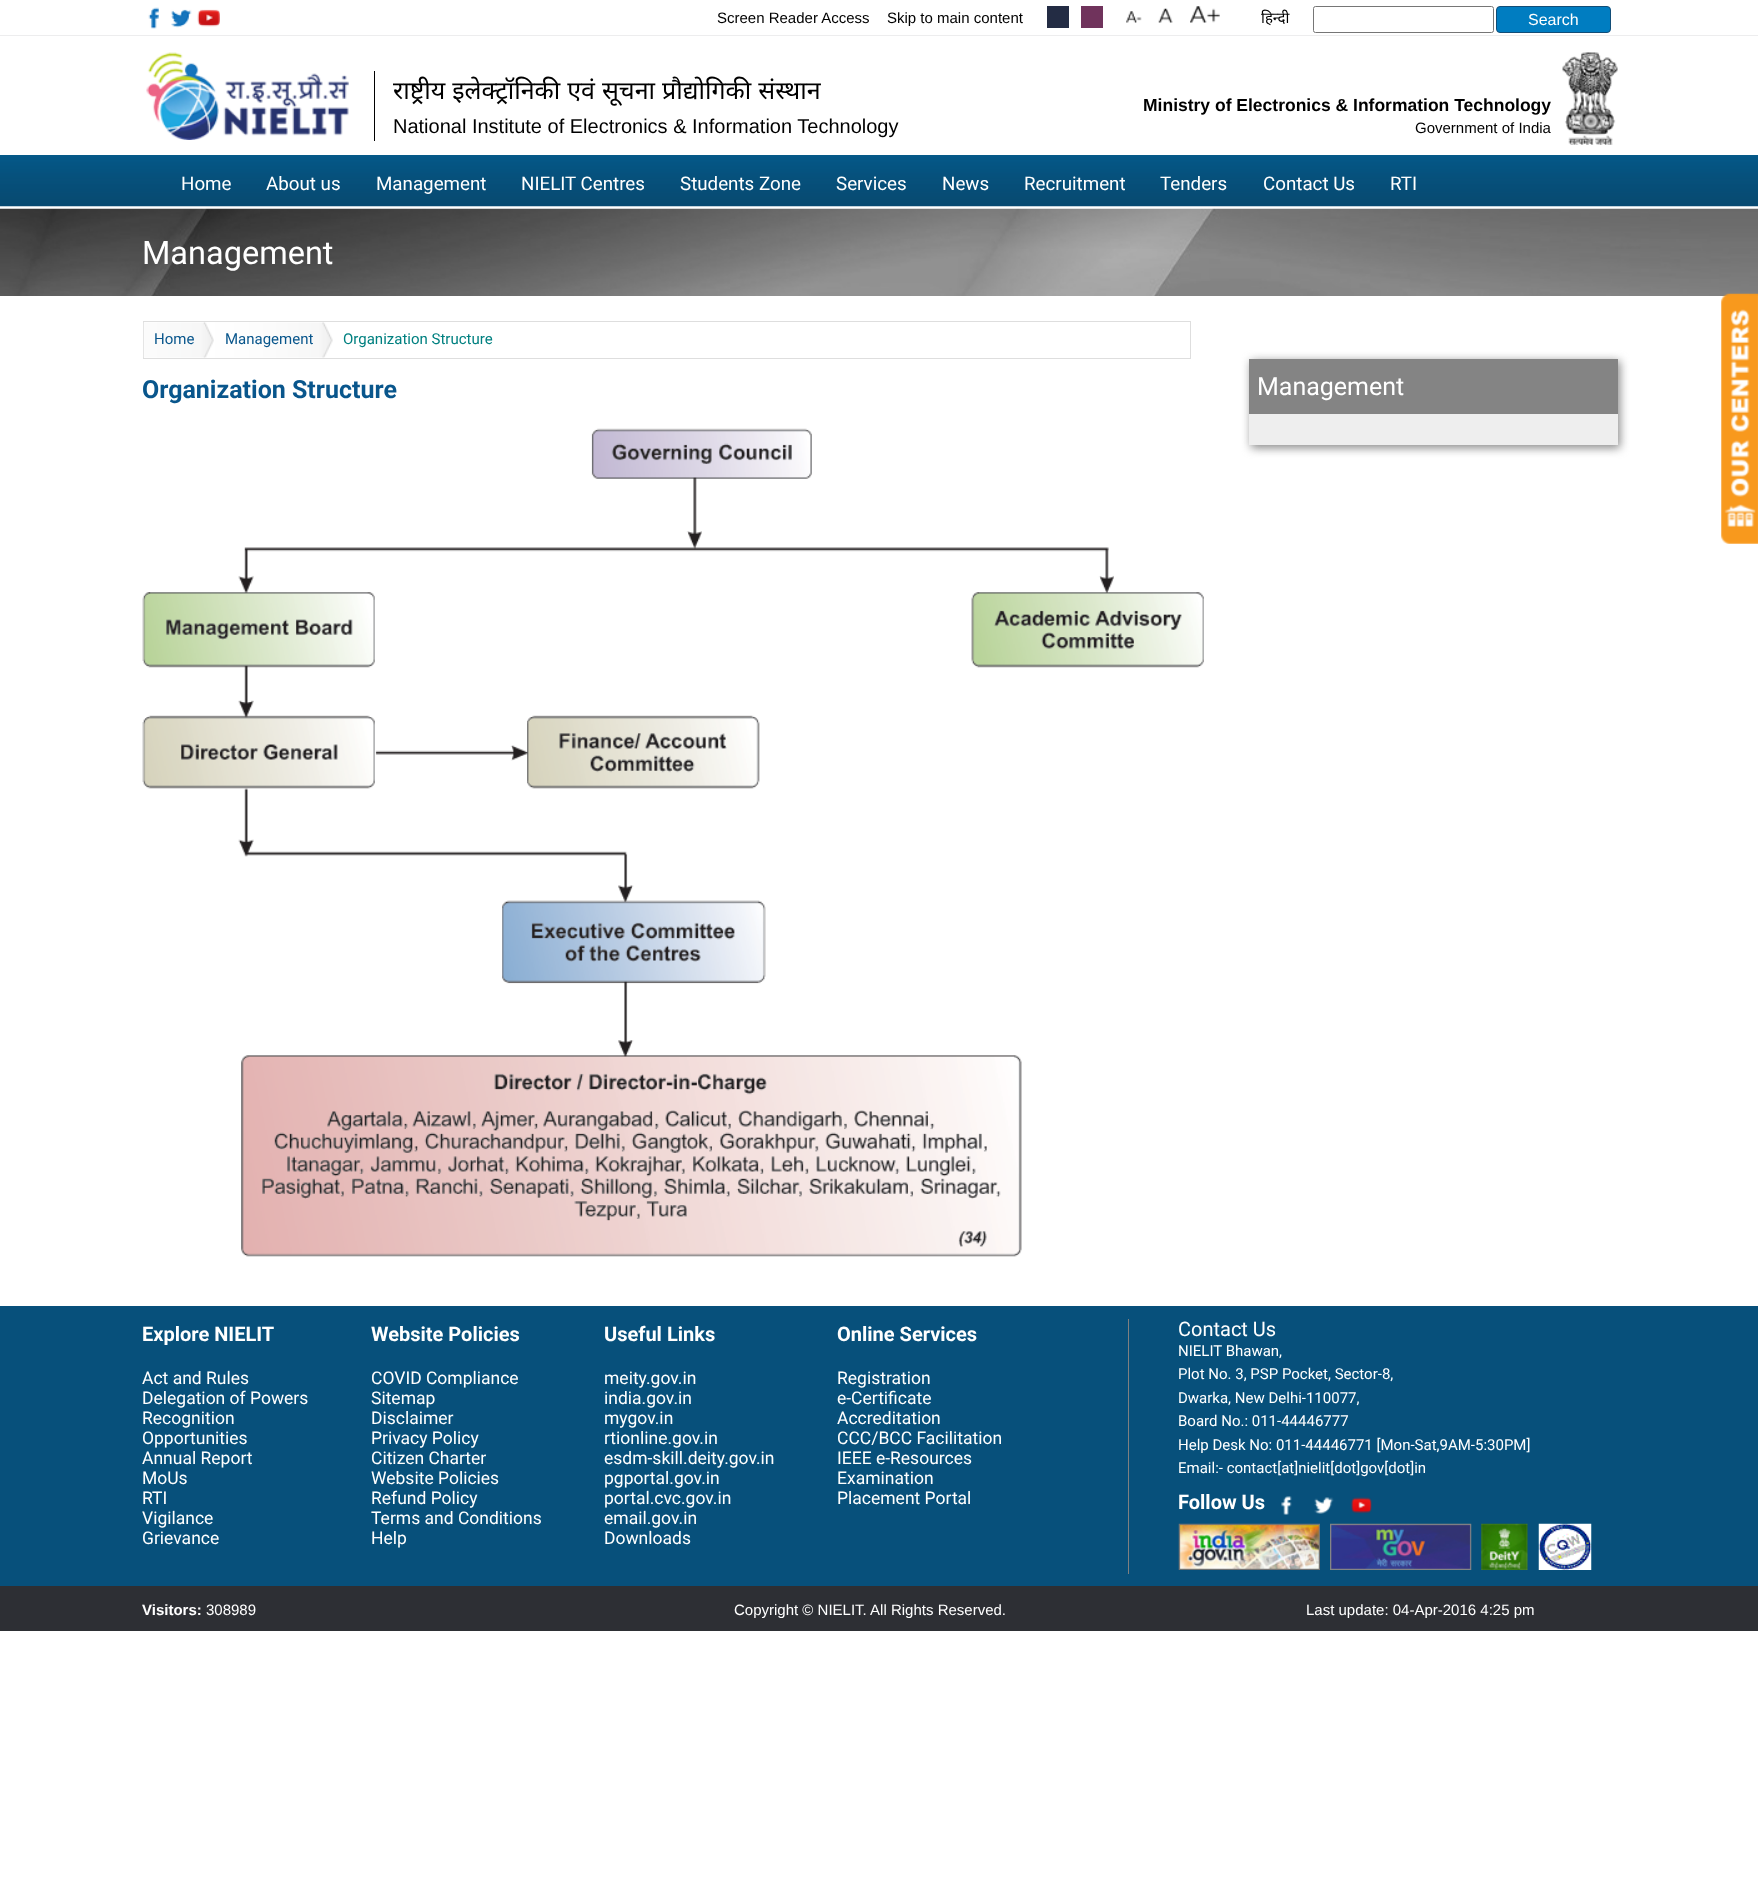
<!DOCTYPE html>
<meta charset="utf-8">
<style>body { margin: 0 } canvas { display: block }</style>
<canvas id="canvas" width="1758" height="1891"></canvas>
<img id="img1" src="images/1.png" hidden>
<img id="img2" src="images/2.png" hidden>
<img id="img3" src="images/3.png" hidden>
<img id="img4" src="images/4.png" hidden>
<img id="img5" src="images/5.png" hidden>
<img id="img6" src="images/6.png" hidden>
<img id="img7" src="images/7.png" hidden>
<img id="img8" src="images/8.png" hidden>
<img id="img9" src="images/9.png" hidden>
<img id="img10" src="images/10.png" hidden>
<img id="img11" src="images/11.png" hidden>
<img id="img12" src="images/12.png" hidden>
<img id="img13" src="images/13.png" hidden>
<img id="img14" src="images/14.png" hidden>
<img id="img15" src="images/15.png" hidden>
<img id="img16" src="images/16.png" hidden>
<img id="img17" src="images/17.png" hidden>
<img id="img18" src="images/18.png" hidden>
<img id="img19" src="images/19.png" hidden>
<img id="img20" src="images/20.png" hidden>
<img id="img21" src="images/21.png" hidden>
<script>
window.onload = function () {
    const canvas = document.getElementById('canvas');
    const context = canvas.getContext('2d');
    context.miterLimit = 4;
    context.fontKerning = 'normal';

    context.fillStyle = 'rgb(255, 255, 255)';
    context.fillRect(0, 0, 1758, 1891);
    context.fillStyle = 'rgb(237, 237, 238)';
    context.fillRect(0, 35, 1758, 1);
    context.drawImage(document.getElementById('img1'), 148, 7, 11, 22);
    context.drawImage(document.getElementById('img2'), 171, 9, 21, 19);
    context.drawImage(document.getElementById('img3'), 197, 9, 23, 18);
    context.fillStyle = 'rgb(35, 44, 68)';
    context.fillRect(1047, 6, 22, 22);
    context.fillStyle = 'rgb(112, 51, 92)';
    context.fillRect(1081, 6, 22, 22);
    context.drawImage(document.getElementById('img4'), 1126, 11, 16, 12);
    context.drawImage(document.getElementById('img5'), 1158, 8, 15, 15);
    context.drawImage(document.getElementById('img6'), 1190, 6, 30, 17);
    context.beginPath();
    context.roundRect(1313.5, 6.5, 180, 26, 2);
    context.strokeStyle = 'rgb(118, 118, 118)';
    context.stroke();
    context.fillStyle = 'rgb(0, 125, 193)';
    context.beginPath();
    context.roundRect(1496.5, 6.5, 114, 26, 3.5);
    context.fill();
    context.strokeStyle = 'rgb(18, 77, 119)';
    context.stroke();
    context.drawImage(document.getElementById('img7'), 146, 52, 203, 88);
    context.fillStyle = 'rgb(0, 0, 0)';
    context.fillRect(374, 71, 1, 70);
    context.drawImage(document.getElementById('img8'), 1562, 52, 56, 93);
    context.drawImage(document.getElementById('img9'), 0, 155, 1758, 52);
    context.drawImage(document.getElementById('img10'), 0, 208, 1758, 88);
    context.strokeStyle = 'rgb(222, 222, 222)';
    context.strokeRect(143.5, 321.5, 1047, 37);
    context.drawImage(document.getElementById('img11'), 143, 322, 71, 36);
    context.drawImage(document.getElementById('img12'), 213, 322, 120, 36);
    context.drawImage(document.getElementById('img13'), 142, 428, 1062, 829);
    context.fillStyle = 'rgb(136, 136, 136)';
    context.filter = 'blur(5px)';
    context.beginPath();
    context.rect(1251, 361, 369, 87);
    context.fill();
    context.filter = 'none';
    context.fillStyle = 'rgb(132, 132, 132)';
    context.fillRect(1249, 359, 369, 55);
    context.fillStyle = 'rgb(238, 238, 238)';
    context.fillRect(1249, 414, 369, 31);
    context.drawImage(document.getElementById('img14'), 1721, 293, 37, 251);
    context.fillStyle = 'rgb(7, 80, 123)';
    context.fillRect(0, 1306, 1758, 280);
    context.fillStyle = 'rgb(127, 128, 128)';
    context.fillRect(1128, 1319, 1, 255);
    context.drawImage(document.getElementById('img15'), 1281, 1496, 11, 19);
    context.drawImage(document.getElementById('img16'), 1314, 1497, 20, 17);
    context.drawImage(document.getElementById('img17'), 1351, 1497, 21, 17);
    context.drawImage(document.getElementById('img18'), 1178, 1523, 142, 47);
    context.drawImage(document.getElementById('img19'), 1330, 1523, 142, 47);
    context.drawImage(document.getElementById('img20'), 1481, 1523, 47, 47);
    context.drawImage(document.getElementById('img21'), 1538, 1523, 54, 47);
    context.fillStyle = 'rgb(45, 47, 52)';
    context.fillRect(0, 1586, 1758, 45);
    context.font = '15px Liberation Sans';
    context.fillStyle = 'rgb(0, 0, 0)';
    context.fillText('Screen Reader Access', 717, 23);
    context.fillText('Skip to main content', 887, 23);
    context.font = '15px Noto Sans';
    context.fillText('हिन्दी', 1261, 23);
    context.font = '16px Liberation Sans';
    context.fillStyle = 'rgb(255, 255, 255)';
    context.fillText('Search', 1528, 25);
    context.wordSpacing = '0.5px';
    context.font = '25px Noto Sans';
    context.fillStyle = 'rgb(0, 0, 0)';
    context.fillText('राष्ट्रीय इलेक्ट्रॉनिकी एवं सूचना प्रौद्योगिकी संस्थान', 393, 99);
    context.wordSpacing = '0px';
    context.font = '20px Liberation Sans';
    context.fillText('National Institute of Electronics & Information Technology', 393, 133);
    context.font = 'bold 17.5px Liberation Sans';
    context.fillText('Ministry of Electronics & Information Technology', 1143, 111);
    context.font = '15px Liberation Sans';
    context.fillText('Government of India', 1415, 133);
    context.font = '18.75px Roboto';
    context.fillStyle = 'rgb(255, 255, 255)';
    context.fillText('Home', 181, 190);
    context.fillText('About us', 266, 190);
    context.fillText('Management', 376, 190);
    context.fillText('NIELIT Centres', 521, 190);
    context.fillText('Students Zone', 680, 190);
    context.fillText('Services', 836, 190);
    context.fillText('News', 942, 190);
    context.fillText('Recruitment', 1024, 190);
    context.fillText('Tenders', 1160, 190);
    context.fillText('Contact Us', 1263, 190);
    context.fillText('RTI', 1390, 190);
    context.font = '32.5px Roboto';
    context.fillText('Management', 142, 264);
    context.font = '15px Roboto';
    context.fillStyle = 'rgb(9, 86, 140)';
    context.fillText('Home', 154, 344);
    context.fillText('Management', 225, 344);
    context.fillStyle = 'rgb(0, 128, 128)';
    context.fillText('Organization Structure', 343, 344);
    context.font = 'bold 25px Roboto';
    context.fillStyle = 'rgb(9, 86, 140)';
    context.fillText('Organization Structure', 142, 398);
    context.font = '25px Roboto';
    context.fillStyle = 'rgb(255, 255, 255)';
    context.fillText('Management', 1257, 395);
    context.font = 'bold 20px Roboto';
    context.fillText('Explore NIELIT', 142, 1341);
    context.font = '17.5px Roboto';
    context.fillText('Act and Rules', 142, 1384);
    context.fillText('Delegation of Powers', 142, 1404);
    context.fillText('Recognition', 142, 1424);
    context.fillText('Opportunities', 142, 1444);
    context.fillText('Annual Report', 142, 1464);
    context.fillText('MoUs', 142, 1484);
    context.fillText('RTI', 142, 1504);
    context.fillText('Vigilance', 142, 1524);
    context.fillText('Grievance', 142, 1544);
    context.font = 'bold 20px Roboto';
    context.fillText('Website Policies', 371, 1341);
    context.font = '17.5px Roboto';
    context.fillText('COVID Compliance', 371, 1384);
    context.fillText('Sitemap', 371, 1404);
    context.fillText('Disclaimer', 371, 1424);
    context.fillText('Privacy Policy', 371, 1444);
    context.fillText('Citizen Charter', 371, 1464);
    context.fillText('Website Policies', 371, 1484);
    context.fillText('Refund Policy', 371, 1504);
    context.fillText('Terms and Conditions', 371, 1524);
    context.fillText('Help', 371, 1544);
    context.font = 'bold 20px Roboto';
    context.fillText('Useful Links', 604, 1341);
    context.font = '17.5px Roboto';
    context.fillText('meity.gov.in', 604, 1384);
    context.fillText('india.gov.in', 604, 1404);
    context.fillText('mygov.in', 604, 1424);
    context.fillText('rtionline.gov.in', 604, 1444);
    context.fillText('esdm-skill.deity.gov.in', 604, 1464);
    context.fillText('pgportal.gov.in', 604, 1484);
    context.fillText('portal.cvc.gov.in', 604, 1504);
    context.fillText('email.gov.in', 604, 1524);
    context.fillText('Downloads', 604, 1544);
    context.font = 'bold 20px Roboto';
    context.fillText('Online Services', 837, 1341);
    context.font = '17.5px Roboto';
    context.fillText('Registration', 837, 1384);
    context.fillText('e-Certificate', 837, 1404);
    context.fillText('Accreditation', 837, 1424);
    context.fillText('CCC/BCC Facilitation', 837, 1444);
    context.fillText('IEEE e-Resources', 837, 1464);
    context.fillText('Examination', 837, 1484);
    context.fillText('Placement Portal', 837, 1504);
    context.font = '20px Roboto';
    context.fillText('Contact Us', 1178, 1336);
    context.font = '15px Roboto';
    context.fillText('NIELIT Bhawan,', 1178, 1356);
    context.fillText('Plot No. 3, PSP Pocket, Sector-8,', 1178, 1379);
    context.fillText('Dwarka, New Delhi-110077,', 1178, 1403);
    context.fillText('Board No.: 011-44446777', 1178, 1426);
    context.fillText('Help Desk No: 011-44446771 [Mon-Sat,9AM-5:30PM]', 1178, 1450);
    context.fillText('Email:- contact[at]nielit[dot]gov[dot]in', 1178, 1473);
    context.font = 'bold 20px Roboto';
    context.fillText('Follow Us', 1178, 1509);
    context.font = 'bold 15px Liberation Sans';
    context.fillText('Visitors:', 142, 1615);
    context.font = '15px Liberation Sans';
    context.fillText('308989', 206, 1615);
    context.fillText('Copyright © NIELIT. All Rights Reserved.', 734, 1615);
    context.fillText('Last update: 04-Apr-2016 4:25 pm', 1306, 1615);
};
</script>
